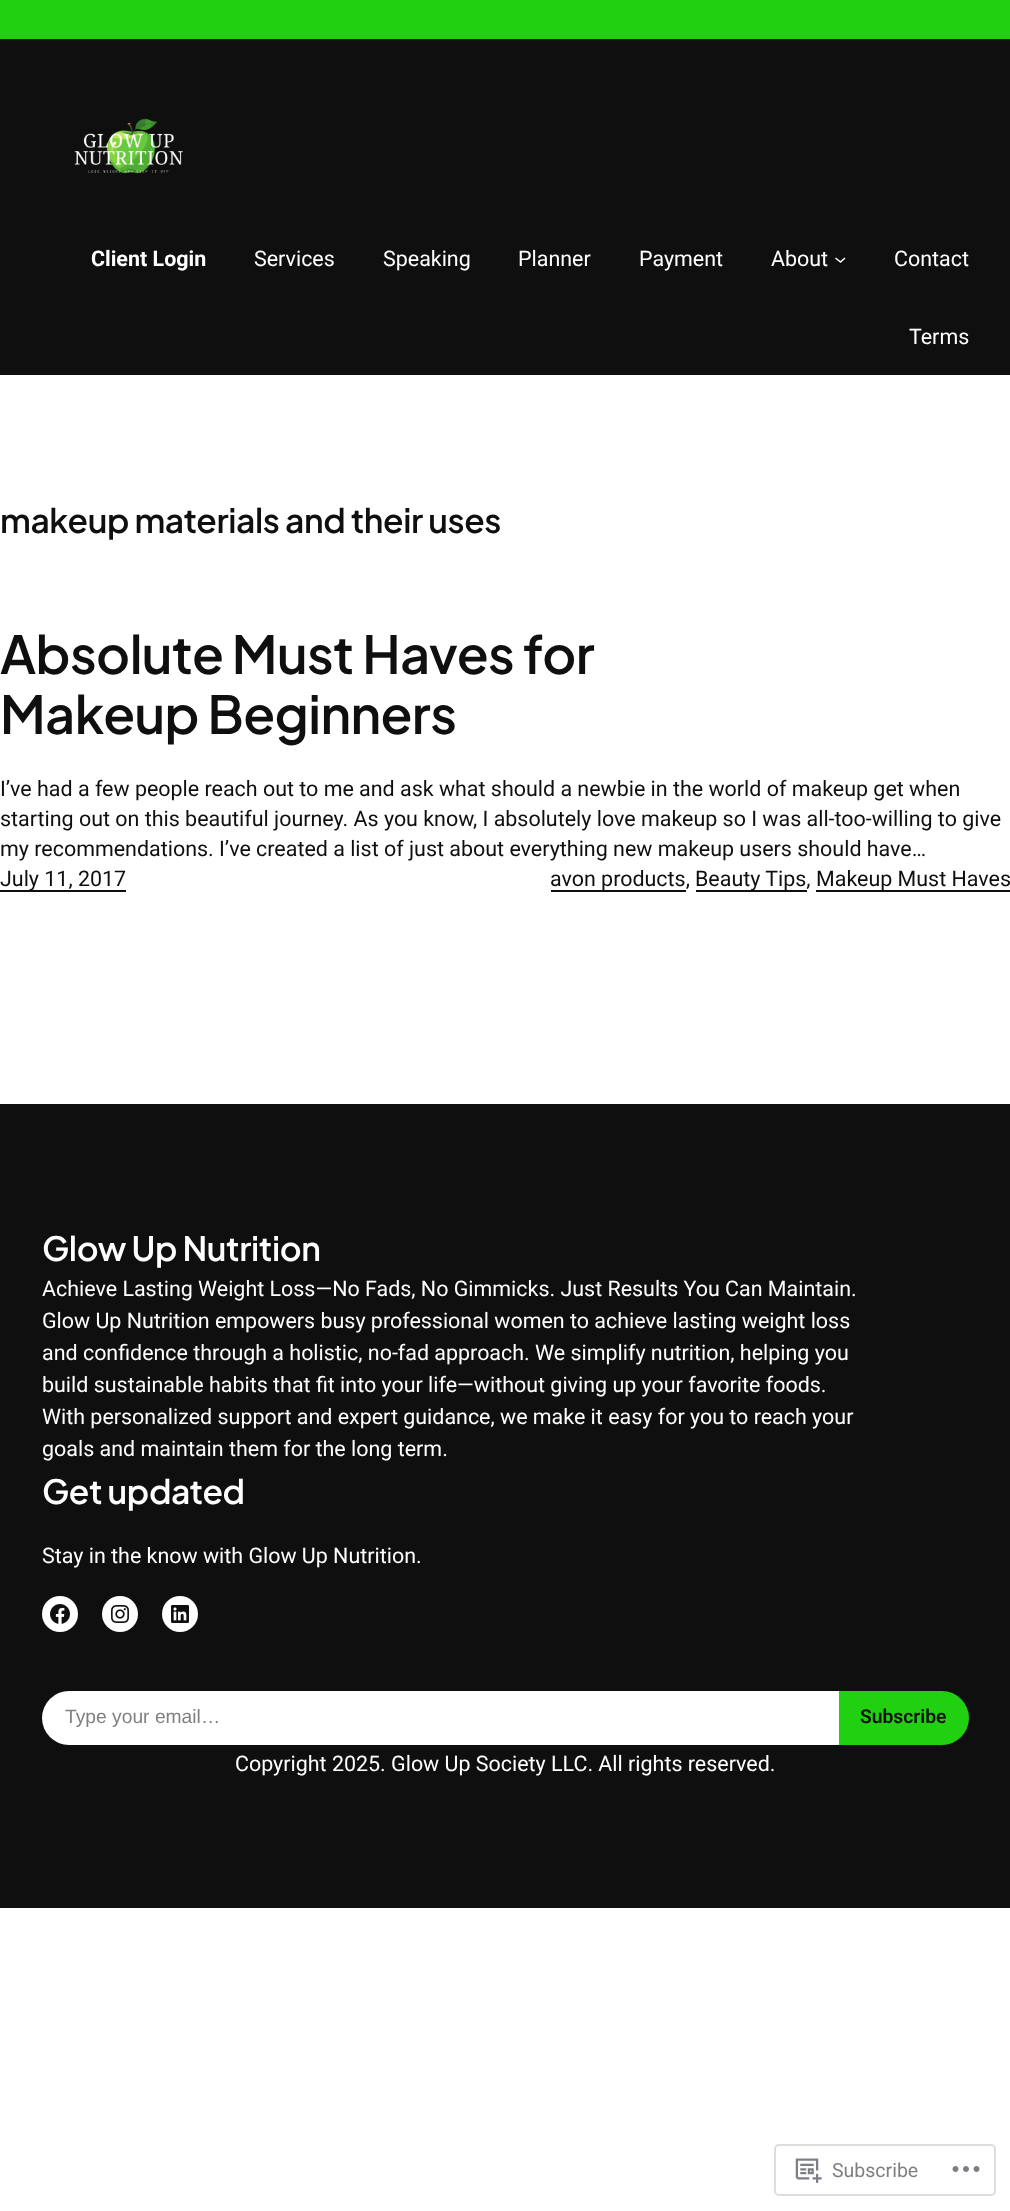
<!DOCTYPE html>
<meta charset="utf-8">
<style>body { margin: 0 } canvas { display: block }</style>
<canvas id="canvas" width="1010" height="2211"></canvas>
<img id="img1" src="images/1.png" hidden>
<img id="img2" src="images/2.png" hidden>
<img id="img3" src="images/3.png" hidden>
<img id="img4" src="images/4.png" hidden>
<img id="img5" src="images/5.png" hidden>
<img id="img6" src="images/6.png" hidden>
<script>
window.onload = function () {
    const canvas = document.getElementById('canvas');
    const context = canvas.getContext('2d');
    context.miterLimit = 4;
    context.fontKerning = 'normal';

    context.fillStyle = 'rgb(255, 255, 255)';
    context.fillRect(0, 0, 1010, 2211);
    context.fillStyle = 'rgb(33, 209, 17)';
    context.fillRect(0, 0, 1010, 39);
    context.fillStyle = 'rgb(15, 15, 15)';
    context.fillRect(0, 39, 1010, 336);
    context.drawImage(document.getElementById('img1'), 74, 118, 110, 56);
    context.beginPath();
    context.moveTo(835.5, 258);
    context.lineTo(840.5, 262);
    context.lineTo(845, 258);
    context.strokeStyle = 'rgb(255, 255, 255)';
    context.lineWidth = 1.6;
    context.stroke();
    context.fillRect(0, 890, 126, 2);
    context.fillRect(551, 890, 135, 2);
    context.fillRect(696, 890, 111, 2);
    context.fillRect(816, 890, 194, 2);
    context.fillRect(0, 1104, 1010, 804);
    context.fillStyle = 'rgb(255, 255, 255)';
    context.beginPath();
    context.arc(60, 1614, 18, 0, 2 * Math.PI);
    context.fill();
    context.drawImage(document.getElementById('img2'), 50, 1604, 20, 20);
    context.beginPath();
    context.arc(120, 1614, 18, 0, 2 * Math.PI);
    context.fill();
    context.drawImage(document.getElementById('img3'), 111, 1605, 18, 18);
    context.beginPath();
    context.arc(180, 1614, 18, 0, 2 * Math.PI);
    context.fill();
    context.drawImage(document.getElementById('img4'), 171, 1605, 18, 18);
    context.beginPath();
    context.roundRect(42, 1691, 797, 54, [27, 0, 0, 27]);
    context.fill();
    context.fillStyle = 'rgb(33, 209, 17)';
    context.beginPath();
    context.roundRect(839, 1691, 130, 54, [0, 27, 27, 0]);
    context.fill();
    context.beginPath();
    context.roundRect(775, 2145, 220, 50, 4);
    context.strokeStyle = 'rgb(221, 221, 223)';
    context.lineWidth = 2;
    context.stroke();
    context.drawImage(document.getElementById('img5'), 795, 2158, 27, 25);
    context.drawImage(document.getElementById('img6'), 952, 2166, 28, 6);
    context.font = 'bold 21.45px Roboto';
    context.fillStyle = 'rgb(255, 255, 255)';
    context.fillText('Client Login', 91, 266);
    context.font = '21.45px Roboto';
    context.fillText('Services', 254, 266);
    context.fillText('Speaking', 383, 266);
    context.fillText('Planner', 518, 266);
    context.fillText('Payment', 639, 266);
    context.fillText('About', 771, 266);
    context.fillText('Contact', 894, 266);
    context.fillText('Terms', 909, 344);
    context.letterSpacing = '-0.4px';
    context.font = '600 33.5px Plus Jakarta Sans';
    context.fillStyle = 'rgb(15, 15, 15)';
    context.fillText('makeup materials and their uses', 0, 533);
    context.letterSpacing = '-0.6px';
    context.font = '600 52.25px Plus Jakarta Sans';
    context.fillText('Absolute Must Haves for', 0, 674);
    context.fillText('Makeup Beginners', 0, 734);
    context.letterSpacing = '0px';
    context.font = '21.45px Roboto';
    context.fillText('I’ve had a few people reach out to me and ask what should a newbie in the world of makeup get when', 0, 796);
    context.fillText('starting out on this beautiful journey. As you know, I absolutely love makeup so I was all-too-willing to give', 0, 826);
    context.fillText('my recommendations. I’ve created a list of just about everything new makeup users should have…', 0, 856);
    context.fillText('July 11, 2017', 0, 886);
    context.fillText('avon products,', 550, 886);
    context.fillText('Beauty Tips,', 695, 886);
    context.fillText('Makeup Must Haves', 816, 886);
    context.letterSpacing = '-0.4px';
    context.font = '600 33.5px Plus Jakarta Sans';
    context.fillStyle = 'rgb(255, 255, 255)';
    context.fillText('Glow Up Nutrition', 42, 1261);
    context.letterSpacing = '0px';
    context.font = '21.45px Roboto';
    context.fillText('Achieve Lasting Weight Loss—No Fads, No Gimmicks. Just Results You Can Maintain.', 42, 1296);
    context.fillText('Glow Up Nutrition empowers busy professional women to achieve lasting weight loss', 42, 1328);
    context.fillText('and confidence through a holistic, no-fad approach. We simplify nutrition, helping you', 42, 1360);
    context.fillText('build sustainable habits that fit into your life—without giving up your favorite foods.', 42, 1392);
    context.fillText('With personalized support and expert guidance, we make it easy for you to reach your', 42, 1424);
    context.fillText('goals and maintain them for the long term.', 42, 1456);
    context.letterSpacing = '-0.4px';
    context.font = '600 33.5px Plus Jakarta Sans';
    context.fillText('Get updated', 42, 1504);
    context.letterSpacing = '0px';
    context.font = '21.45px Roboto';
    context.fillText('Stay in the know with Glow Up Nutrition.', 42, 1563);
    context.font = '19.25px Liberation Sans';
    context.fillStyle = 'rgb(128, 128, 128)';
    context.fillText('Type your email…', 65, 1723);
    context.font = '600 19.25px Roboto';
    context.fillStyle = 'rgb(15, 15, 15)';
    context.fillText('Subscribe', 860, 1723);
    context.font = '21.45px Roboto';
    context.fillStyle = 'rgb(255, 255, 255)';
    context.fillText('Copyright 2025. Glow Up Society LLC. All rights reserved.', 235, 1771);
    context.font = '19.5px Roboto';
    context.fillStyle = 'rgb(128, 128, 128)';
    context.fillText('Subscribe', 832, 2177);
};
</script>
